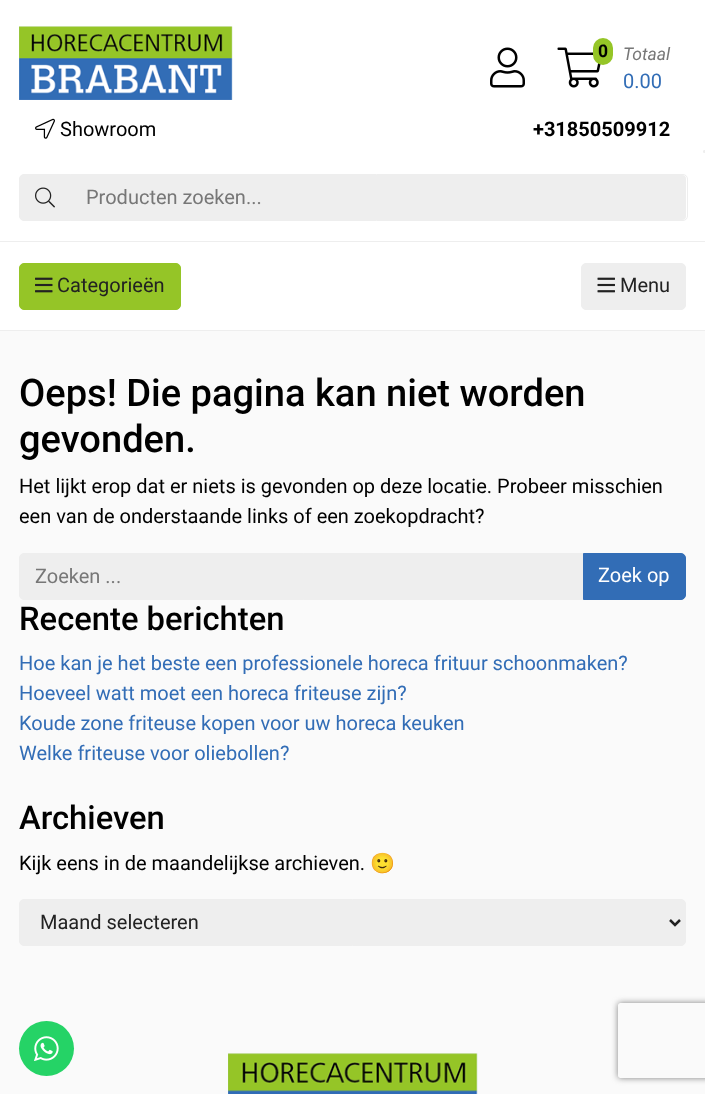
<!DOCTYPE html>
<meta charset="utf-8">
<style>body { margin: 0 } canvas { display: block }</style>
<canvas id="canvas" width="705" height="1094"></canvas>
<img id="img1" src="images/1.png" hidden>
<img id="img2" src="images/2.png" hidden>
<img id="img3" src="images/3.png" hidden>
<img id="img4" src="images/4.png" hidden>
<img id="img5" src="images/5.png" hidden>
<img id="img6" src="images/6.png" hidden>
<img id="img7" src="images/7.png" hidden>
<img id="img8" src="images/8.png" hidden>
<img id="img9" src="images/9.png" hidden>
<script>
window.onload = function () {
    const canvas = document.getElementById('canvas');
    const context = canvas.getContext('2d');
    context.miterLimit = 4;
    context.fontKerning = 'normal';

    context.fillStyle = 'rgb(250, 250, 250)';
    context.fillRect(0, 0, 705, 1094);
    context.fillStyle = 'rgb(255, 255, 255)';
    context.fillRect(0, 0, 705, 330);
    context.fillStyle = 'rgb(238, 238, 238)';
    context.fillRect(0, 241, 705, 1);
    context.drawImage(document.getElementById('img1'), 19, 26, 214, 74);
    context.drawImage(document.getElementById('img2'), 490, 47, 35, 41);
    context.drawImage(document.getElementById('img3'), 557, 47, 44, 41);
    context.fillStyle = 'rgb(149, 197, 39)';
    context.beginPath();
    context.roundRect(593, 38, 20, 27, 10);
    context.fill();
    context.drawImage(document.getElementById('img4'), 35, 118, 20, 21);
    context.fillStyle = 'rgb(238, 238, 238)';
    context.beginPath();
    context.roundRect(19.5, 174.5, 51, 46, [4.5, 0, 0, 4.5]);
    context.fill();
    context.strokeStyle = 'rgb(238, 238, 238)';
    context.stroke();
    context.drawImage(document.getElementById('img5'), 35, 187, 20, 21);
    context.beginPath();
    context.roundRect(71, 175, 615, 45, [0, 4, 4, 0]);
    context.fill();
    context.beginPath();
    context.roundRect(70.5, 174.5, 617, 46, [0, 4.5, 4.5, 0]);
    context.stroke();
    context.fillRect(0, 330, 705, 1);
    context.fillStyle = 'rgb(149, 197, 39)';
    context.beginPath();
    context.roundRect(19.5, 263.5, 161, 46, 4.5);
    context.fill();
    context.strokeStyle = 'rgb(149, 197, 39)';
    context.stroke();
    context.drawImage(document.getElementById('img6'), 35, 277, 18, 16);
    context.fillStyle = 'rgb(238, 238, 238)';
    context.beginPath();
    context.roundRect(581.5, 263.5, 104, 46, 4.5);
    context.fill();
    context.strokeStyle = 'rgb(238, 238, 238)';
    context.stroke();
    context.drawImage(document.getElementById('img7'), 597, 277, 18, 16);
    context.beginPath();
    context.roundRect(19.5, 553.5, 564, 46, [4.5, 0, 0, 4.5]);
    context.fill();
    context.stroke();
    context.fillStyle = 'rgb(50, 109, 182)';
    context.beginPath();
    context.roundRect(583.5, 553.5, 102, 46, [0, 4.5, 4.5, 0]);
    context.fill();
    context.strokeStyle = 'rgb(50, 109, 182)';
    context.stroke();
    context.fillStyle = 'rgb(238, 238, 238)';
    context.beginPath();
    context.roundRect(19.5, 899.5, 666, 46, 4.5);
    context.fill();
    context.strokeStyle = 'rgb(238, 238, 238)';
    context.stroke();
    context.beginPath();
    context.moveTo(670, 920);
    context.lineTo(675, 925);
    context.lineTo(680, 920);
    context.strokeStyle = 'rgb(34, 34, 34)';
    context.lineWidth = 2.5;
    context.stroke();
    context.drawImage(document.getElementById('img8'), 228, 1053, 250, 41);
    context.beginPath();
    context.moveTo(704.5, 150);
    context.lineTo(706, 150);
    context.lineTo(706, 153);
    context.lineTo(704.5, 153);
    context.bezierCurveTo(703.5, 153, 703, 152.5, 703, 151.5);
    context.bezierCurveTo(703, 150.5, 703.5, 150, 704.5, 150);
    context.closePath();
    context.fill();
    context.fillStyle = 'rgb(37, 211, 102)';
    context.beginPath();
    context.arc(46.5, 1048.5, 27.5, 0, 2 * Math.PI);
    context.fill();
    context.drawImage(document.getElementById('img9'), 34, 1036, 25, 25);
    context.save();
    context.beginPath();
    context.moveTo(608, 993);
    context.lineTo(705, 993);
    context.lineTo(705, 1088);
    context.lineTo(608, 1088);
    context.closePath();
    context.moveTo(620.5, 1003);
    context.lineTo(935.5, 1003);
    context.bezierCurveTo(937, 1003, 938, 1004, 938, 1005.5);
    context.lineTo(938, 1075.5);
    context.bezierCurveTo(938, 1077, 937, 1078, 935.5, 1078);
    context.lineTo(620.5, 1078);
    context.bezierCurveTo(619, 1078, 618, 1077, 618, 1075.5);
    context.lineTo(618, 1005.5);
    context.bezierCurveTo(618, 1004, 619, 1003, 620.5, 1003);
    context.closePath();
    context.clip('evenodd');
    context.fillStyle = 'rgb(128, 128, 128)';
    context.filter = 'blur(3px)';
    context.beginPath();
    context.roundRect(618, 1003, 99, 75, 2.5);
    context.fill();
    context.filter = 'none';
    context.restore();
    context.font = 'bold 17.5px Roboto';
    context.fillStyle = 'rgb(0, 0, 0)';
    context.fillText('0', 598, 57);
    context.font = 'italic 17.5px Roboto';
    context.fillStyle = 'rgb(119, 119, 119)';
    context.fillText('Totaal', 623, 60);
    context.font = '20px Roboto';
    context.fillStyle = 'rgb(50, 109, 182)';
    context.fillText('0.00', 623, 88);
    context.fillStyle = 'rgb(0, 0, 0)';
    context.fillText('Showroom', 60, 136);
    context.font = 'bold 20px Roboto';
    context.fillText('+31850509912', 533, 136);
    context.font = '20px Roboto';
    context.fillStyle = 'rgb(119, 119, 119)';
    context.fillText('Producten zoeken...', 86, 204);
    context.fillStyle = 'rgb(34, 34, 34)';
    context.fillText('Categorieën', 57, 292);
    context.fillText('Menu', 620, 292);
    context.font = '500 38.1px Roboto';
    context.fillStyle = 'rgb(0, 0, 0)';
    context.fillText('Oeps! Die pagina kan niet worden', 19, 406);
    context.fillText('gevonden.', 19, 452);
    context.font = '20px Roboto';
    context.fillText('Het lijkt erop dat er niets is gevonden op deze locatie. Probeer misschien', 19, 493);
    context.fillText('een van de onderstaande links of een zoekopdracht?', 19, 523);
    context.fillStyle = 'rgb(119, 119, 119)';
    context.fillText('Zoeken ...', 35, 583);
    context.fillStyle = 'rgb(255, 255, 255)';
    context.fillText('Zoek op', 598, 582);
    context.font = '500 32.75px Roboto';
    context.fillStyle = 'rgb(0, 0, 0)';
    context.fillText('Recente berichten', 19, 630);
    context.font = '20px Roboto';
    context.fillStyle = 'rgb(50, 109, 182)';
    context.fillText('Hoe kan je het beste een professionele horeca frituur schoonmaken?', 19, 670);
    context.fillText('Hoeveel watt moet een horeca friteuse zijn?', 19, 700);
    context.fillText('Koude zone friteuse kopen voor uw horeca keuken', 19, 730);
    context.fillText('Welke friteuse voor oliebollen?', 19, 760);
    context.font = '500 32.75px Roboto';
    context.fillStyle = 'rgb(0, 0, 0)';
    context.fillText('Archieven', 19, 829);
    context.font = '20px Roboto';
    context.fillText('Kijk eens in de maandelijkse archieven.', 19, 870);
    context.font = '20px Noto Color Emoji';
    context.fillText('🙂', 370, 870);
    context.font = '20px Roboto';
    context.fillStyle = 'rgb(34, 34, 34)';
    context.fillText('Maand selecteren', 40, 929);
};
</script>
